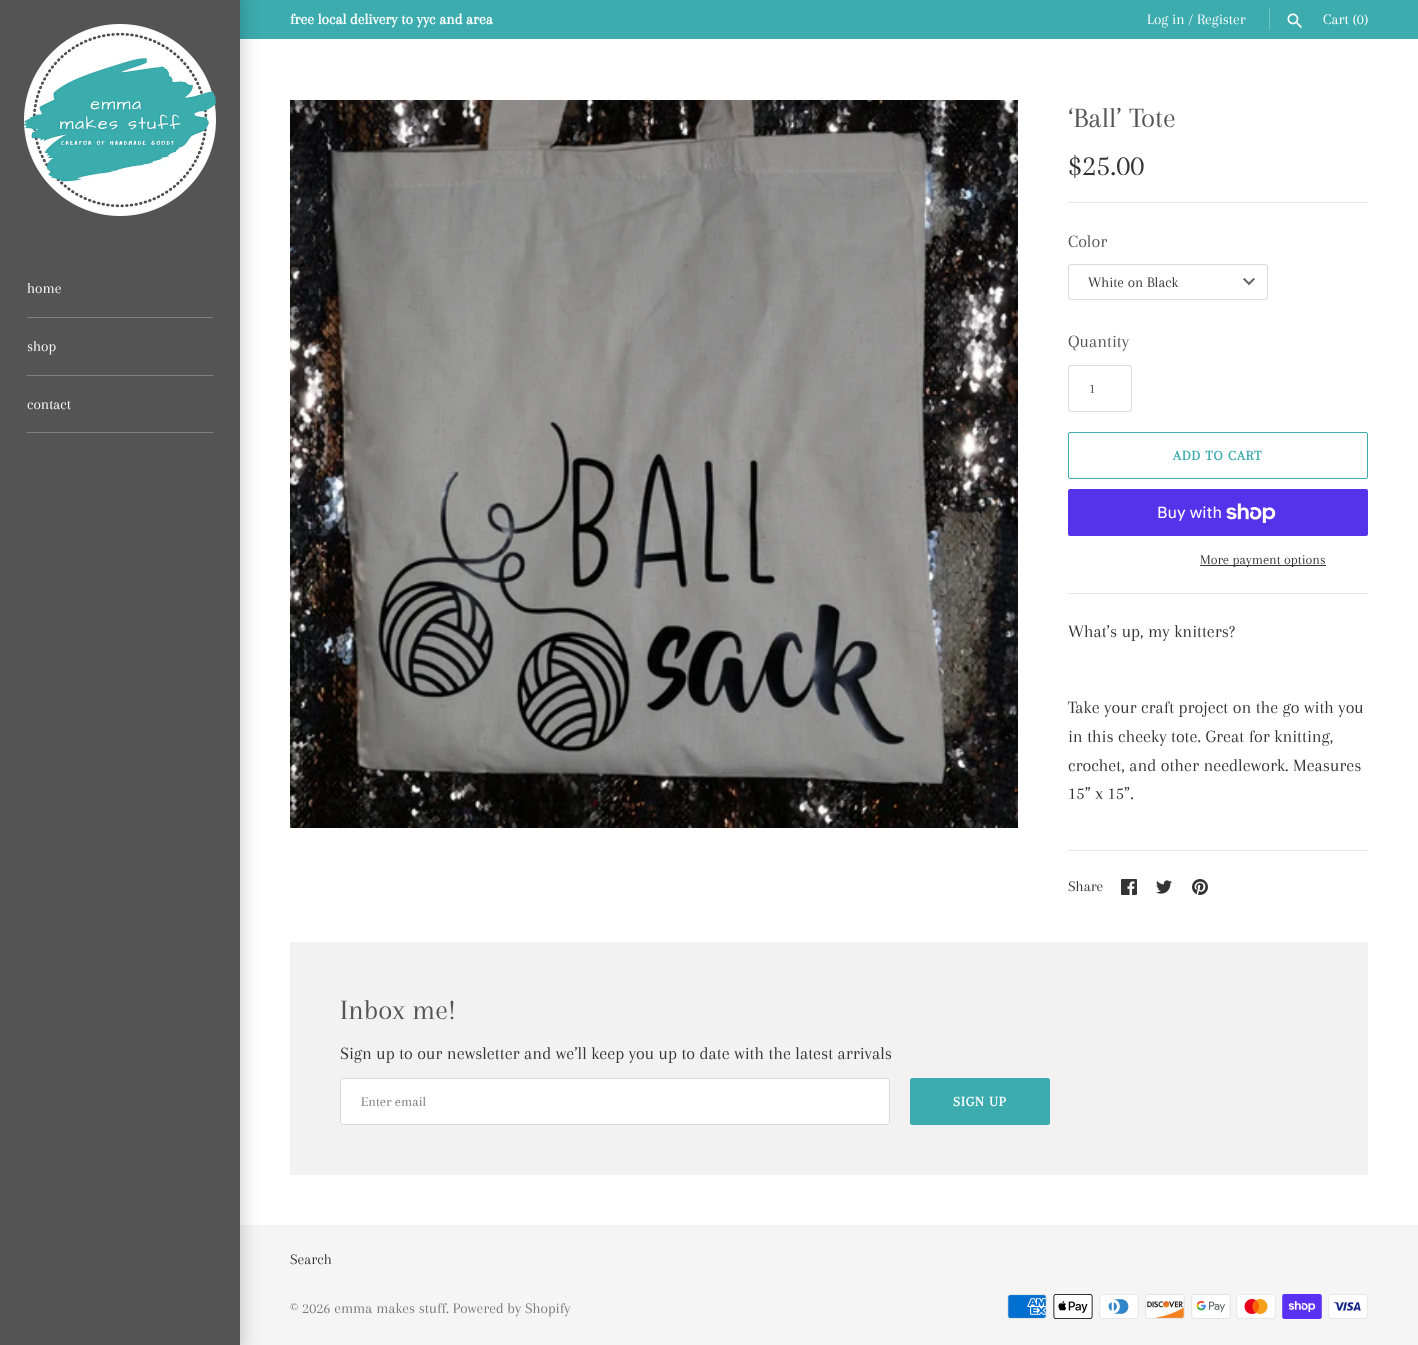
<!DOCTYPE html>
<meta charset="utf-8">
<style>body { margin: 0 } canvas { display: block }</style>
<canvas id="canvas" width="1418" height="1345"></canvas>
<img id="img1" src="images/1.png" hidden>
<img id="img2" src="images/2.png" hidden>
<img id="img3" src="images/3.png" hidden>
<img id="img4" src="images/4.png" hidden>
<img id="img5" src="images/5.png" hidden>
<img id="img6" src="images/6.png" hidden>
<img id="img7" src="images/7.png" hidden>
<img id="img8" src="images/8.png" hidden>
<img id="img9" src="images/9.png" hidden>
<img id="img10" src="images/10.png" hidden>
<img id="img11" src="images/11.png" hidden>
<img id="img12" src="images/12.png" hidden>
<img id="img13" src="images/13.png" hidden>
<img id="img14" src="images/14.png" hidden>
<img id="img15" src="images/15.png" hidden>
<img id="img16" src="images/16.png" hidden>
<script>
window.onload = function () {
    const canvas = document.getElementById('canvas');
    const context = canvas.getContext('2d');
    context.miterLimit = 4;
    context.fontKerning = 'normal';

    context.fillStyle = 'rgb(255, 255, 255)';
    context.fillRect(0, 0, 1418, 1345);
    context.fillStyle = 'rgb(60, 172, 174)';
    context.fillRect(240, 0, 1178, 39);
    context.fillStyle = 'rgb(109, 193, 194)';
    context.fillRect(1269, 8, 1, 22);
    context.drawImage(document.getElementById('img1'), 1287, 13, 15, 15);
    context.fillStyle = 'rgb(245, 245, 245)';
    context.fillRect(240, 1225, 1178, 120);
    context.fillStyle = 'rgba(0, 0, 0, 0.15)';
    context.filter = 'blur(7.5px)';
    context.beginPath();
    context.rect(-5, -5, 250, 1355);
    context.fill();
    context.filter = 'none';
    context.fillStyle = 'rgb(84, 84, 84)';
    context.fillRect(0, 0, 240, 1345);
    context.drawImage(document.getElementById('img2'), 23, 24, 194, 193);
    context.fillStyle = 'rgb(127, 127, 127)';
    context.fillRect(27, 317, 186, 1);
    context.fillRect(27, 375, 186, 1);
    context.fillRect(27, 432, 186, 1);
    context.drawImage(document.getElementById('img3'), 290, 100, 728, 728);
    context.fillStyle = 'rgb(231, 231, 231)';
    context.fillRect(1068, 202, 300, 1);
    context.drawImage(document.getElementById('img4'), 1243, 278, 12, 8);
    context.beginPath();
    context.roundRect(1068.5, 264.5, 199, 35, 2.5);
    context.strokeStyle = 'rgb(217, 217, 217)';
    context.stroke();
    context.beginPath();
    context.roundRect(1068.5, 365.5, 63, 46, 2.5);
    context.stroke();
    context.beginPath();
    context.roundRect(1068.5, 432.5, 299, 46, 1.5);
    context.strokeStyle = 'rgb(60, 172, 174)';
    context.stroke();
    context.fillStyle = 'rgb(84, 51, 235)';
    context.beginPath();
    context.roundRect(1068, 489, 300, 47, 2);
    context.fill();
    context.drawImage(document.getElementById('img5'), 1226, 503, 50, 20);
    context.fillStyle = 'rgb(52, 52, 52)';
    context.fillRect(1200, 565, 126, 1);
    context.fillStyle = 'rgb(231, 231, 231)';
    context.fillRect(1068, 593, 300, 1);
    context.fillRect(1068, 850, 300, 1);
    context.drawImage(document.getElementById('img6'), 1121, 879, 16, 16);
    context.drawImage(document.getElementById('img7'), 1156, 880, 16, 14);
    context.drawImage(document.getElementById('img8'), 1192, 879, 16, 16);
    context.fillStyle = 'rgb(242, 242, 242)';
    context.fillRect(290, 942, 1078, 233);
    context.fillStyle = 'rgb(255, 255, 255)';
    context.beginPath();
    context.roundRect(340, 1078, 550, 47, 3);
    context.fill();
    context.beginPath();
    context.roundRect(340.5, 1078.5, 549, 46, 2.5);
    context.strokeStyle = 'rgba(0, 0, 0, 0.15)';
    context.stroke();
    context.fillStyle = 'rgb(60, 172, 174)';
    context.beginPath();
    context.roundRect(910.5, 1078.5, 139, 46, 1.5);
    context.fill();
    context.strokeStyle = 'rgb(60, 172, 174)';
    context.stroke();
    context.drawImage(document.getElementById('img9'), 1007, 1294, 40, 25);
    context.drawImage(document.getElementById('img10'), 1053, 1294, 40, 25);
    context.drawImage(document.getElementById('img11'), 1099, 1294, 40, 25);
    context.drawImage(document.getElementById('img12'), 1145, 1294, 40, 25);
    context.drawImage(document.getElementById('img13'), 1191, 1294, 40, 25);
    context.drawImage(document.getElementById('img14'), 1236, 1294, 40, 25);
    context.drawImage(document.getElementById('img15'), 1282, 1294, 40, 25);
    context.drawImage(document.getElementById('img16'), 1328, 1294, 40, 25);
    context.font = 'bold 15.25px Arapey';
    context.fillStyle = 'rgb(255, 255, 255)';
    context.fillText('free local delivery to yyc and area', 290, 24);
    context.font = '15.25px Arapey';
    context.fillText('Log in / Register', 1147, 24);
    context.fillText('Cart (0)', 1323, 24);
    context.fillText('home', 27, 293);
    context.fillText('shop', 27, 351);
    context.fillText('contact', 27, 409);
    context.font = '29px Arapey';
    context.fillStyle = 'rgb(84, 84, 84)';
    context.fillText('‘Ball’ Tote', 1068, 127);
    context.font = '30.5px Arapey';
    context.fillStyle = 'rgb(51, 51, 51)';
    context.fillText('$25.00', 1068, 175);
    context.font = '18px Arapey';
    context.fillStyle = 'rgb(84, 84, 84)';
    context.fillText('Color', 1068, 247);
    context.font = '15px Arapey';
    context.fillStyle = 'rgb(51, 51, 51)';
    context.fillText('White on Black', 1088, 287);
    context.font = '18px Arapey';
    context.fillStyle = 'rgb(84, 84, 84)';
    context.fillText('Quantity', 1068, 347);
    context.font = '14px Arapey';
    context.fillStyle = 'rgb(68, 68, 68)';
    context.fillText('1', 1089, 393);
    context.letterSpacing = '1px';
    context.font = 'bold 14px Arapey';
    context.fillStyle = 'rgb(60, 172, 174)';
    context.fillText('ADD TO CART', 1173, 460);
    context.letterSpacing = '0px';
    context.font = '16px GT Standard';
    context.fillStyle = 'rgb(255, 255, 255)';
    context.fillText('Buy with', 1157, 518);
    context.font = '14px Arapey';
    context.fillStyle = 'rgb(51, 51, 51)';
    context.fillText('More payment options', 1200, 564);
    context.font = '18px Arapey';
    context.fillText('What’s up, my knitters?', 1068, 637);
    context.fillText('Take your craft project on the go with you', 1068, 713);
    context.fillText('in this cheeky tote. Great for knitting,', 1068, 742);
    context.fillText('crochet, and other needlework. Measures', 1068, 771);
    context.fillText('15” x 15”.', 1068, 799);
    context.font = '15.25px Arapey';
    context.fillText('Share', 1068, 891);
    context.font = '29px Arapey';
    context.fillStyle = 'rgb(84, 84, 84)';
    context.fillText('Inbox me!', 340, 1019);
    context.font = '18px Arapey';
    context.fillStyle = 'rgb(51, 51, 51)';
    context.fillText('Sign up to our newsletter and we’ll keep you up to date with the latest arrivals', 340, 1059);
    context.font = '14px Arapey';
    context.fillStyle = 'rgb(119, 119, 119)';
    context.fillText('Enter email', 361, 1106);
    context.letterSpacing = '1px';
    context.font = 'bold 14px Arapey';
    context.fillStyle = 'rgb(255, 255, 255)';
    context.fillText('SIGN UP', 953, 1106);
    context.letterSpacing = '0px';
    context.font = '15.25px Arapey';
    context.fillStyle = 'rgb(51, 51, 51)';
    context.fillText('Search', 290, 1264);
    context.fillStyle = 'rgb(119, 119, 119)';
    context.fillText('© 2026 emma makes stuff. Powered by Shopify', 290, 1313);
};
</script>
